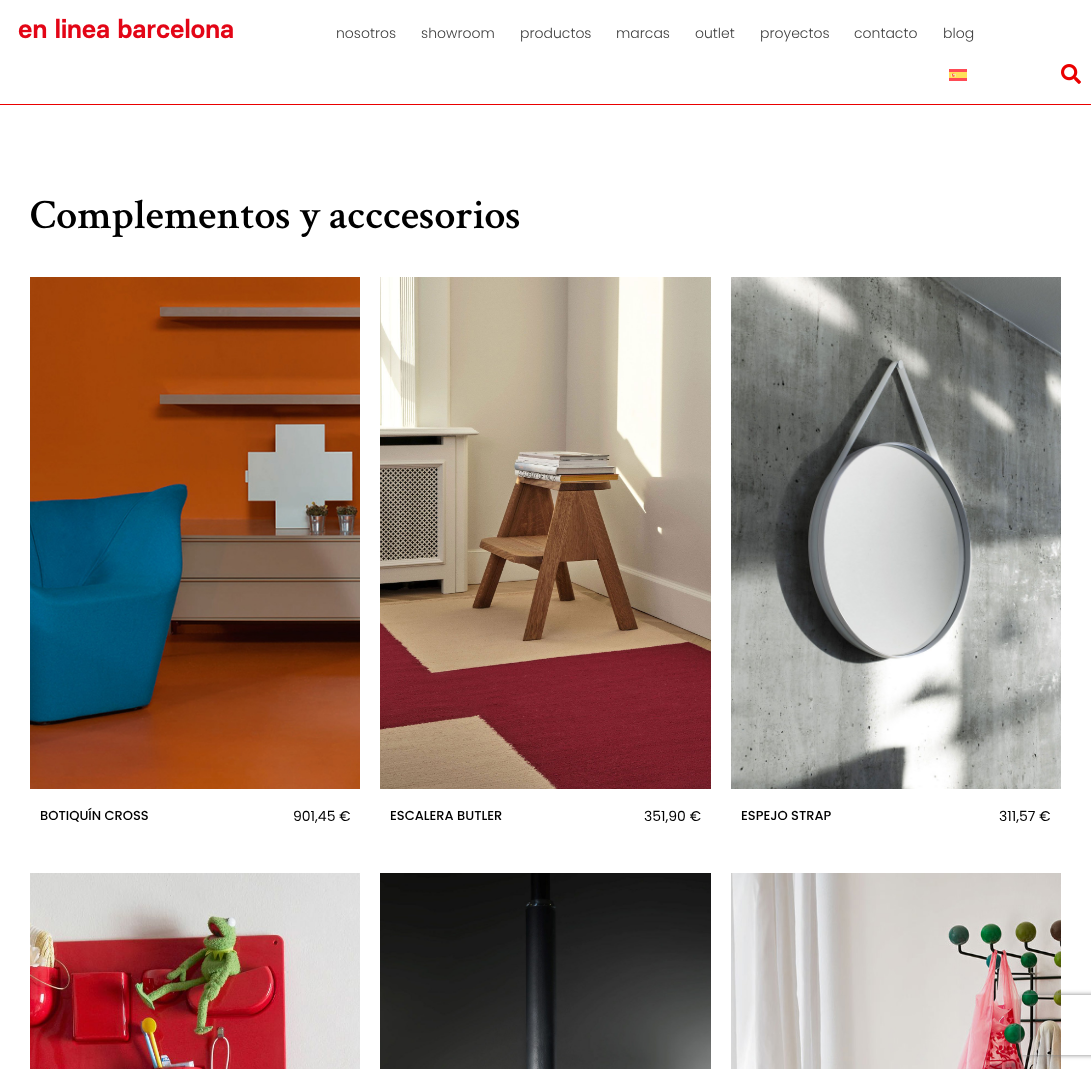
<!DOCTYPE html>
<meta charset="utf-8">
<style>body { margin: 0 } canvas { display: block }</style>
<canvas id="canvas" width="1091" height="1069"></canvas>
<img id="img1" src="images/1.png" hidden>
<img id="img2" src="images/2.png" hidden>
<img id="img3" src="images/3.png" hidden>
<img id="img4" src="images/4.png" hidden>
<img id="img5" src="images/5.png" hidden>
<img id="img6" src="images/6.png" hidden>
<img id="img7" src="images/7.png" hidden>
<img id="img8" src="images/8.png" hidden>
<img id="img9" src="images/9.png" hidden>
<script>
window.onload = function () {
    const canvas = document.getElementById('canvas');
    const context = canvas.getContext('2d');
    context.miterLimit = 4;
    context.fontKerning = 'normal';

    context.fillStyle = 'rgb(255, 255, 255)';
    context.fillRect(0, 0, 1091, 1069);
    context.fillStyle = 'rgb(234, 0, 0)';
    context.fillRect(0, 104, 1091, 1);
    context.drawImage(document.getElementById('img1'), 18, 18, 215, 21);
    context.drawImage(document.getElementById('img2'), 949, 69, 18, 12);
    context.drawImage(document.getElementById('img3'), 1061, 64, 20, 20);
    context.drawImage(document.getElementById('img4'), 30, 277, 330, 512);
    context.drawImage(document.getElementById('img5'), 380, 277, 331, 512);
    context.drawImage(document.getElementById('img6'), 731, 277, 330, 512);
    context.drawImage(document.getElementById('img7'), 30, 873, 330, 196);
    context.drawImage(document.getElementById('img8'), 380, 873, 331, 196);
    context.drawImage(document.getElementById('img9'), 731, 873, 330, 196);
    context.save();
    context.beginPath();
    context.moveTo(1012, 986);
    context.lineTo(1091, 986);
    context.lineTo(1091, 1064);
    context.lineTo(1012, 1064);
    context.closePath();
    context.moveTo(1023, 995);
    context.lineTo(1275, 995);
    context.bezierCurveTo(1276, 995, 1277, 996, 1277, 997);
    context.lineTo(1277, 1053);
    context.bezierCurveTo(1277, 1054, 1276, 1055, 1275, 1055);
    context.lineTo(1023, 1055);
    context.bezierCurveTo(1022, 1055, 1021, 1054, 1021, 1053);
    context.lineTo(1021, 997);
    context.bezierCurveTo(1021, 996, 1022, 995, 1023, 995);
    context.closePath();
    context.clip('evenodd');
    context.fillStyle = 'rgb(128, 128, 128)';
    context.filter = 'blur(2.5px)';
    context.beginPath();
    context.roundRect(1021, 995, 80, 60, 2);
    context.fill();
    context.filter = 'none';
    context.restore();
    context.font = '300 14px Poppins';
    context.fillStyle = 'rgb(65, 65, 65)';
    context.fillText('nosotros', 336, 38);
    context.fillText('showroom', 421, 38);
    context.fillText('productos', 520, 38);
    context.fillText('marcas', 616, 38);
    context.fillText('outlet', 695, 38);
    context.fillText('proyectos', 760, 38);
    context.fillText('contacto', 854, 38);
    context.fillText('blog', 943, 38);
    context.font = '600 42px Crimson Text';
    context.fillStyle = 'rgb(0, 0, 0)';
    context.fillText('Complementos y acccesorios', 30, 228);
    context.font = '500 13px Poppins';
    context.fillText('BOTIQUÍN CROSS', 40, 820);
    context.font = '14px Poppins';
    context.fillText('901,45 €', 293, 821);
    context.font = '500 13px Poppins';
    context.fillText('ESCALERA BUTLER', 390, 820);
    context.font = '14px Poppins';
    context.fillText('351,90 €', 644, 821);
    context.font = '500 13px Poppins';
    context.fillText('ESPEJO STRAP', 741, 820);
    context.font = '14px Poppins';
    context.fillText('311,57 €', 999, 821);
};
</script>
